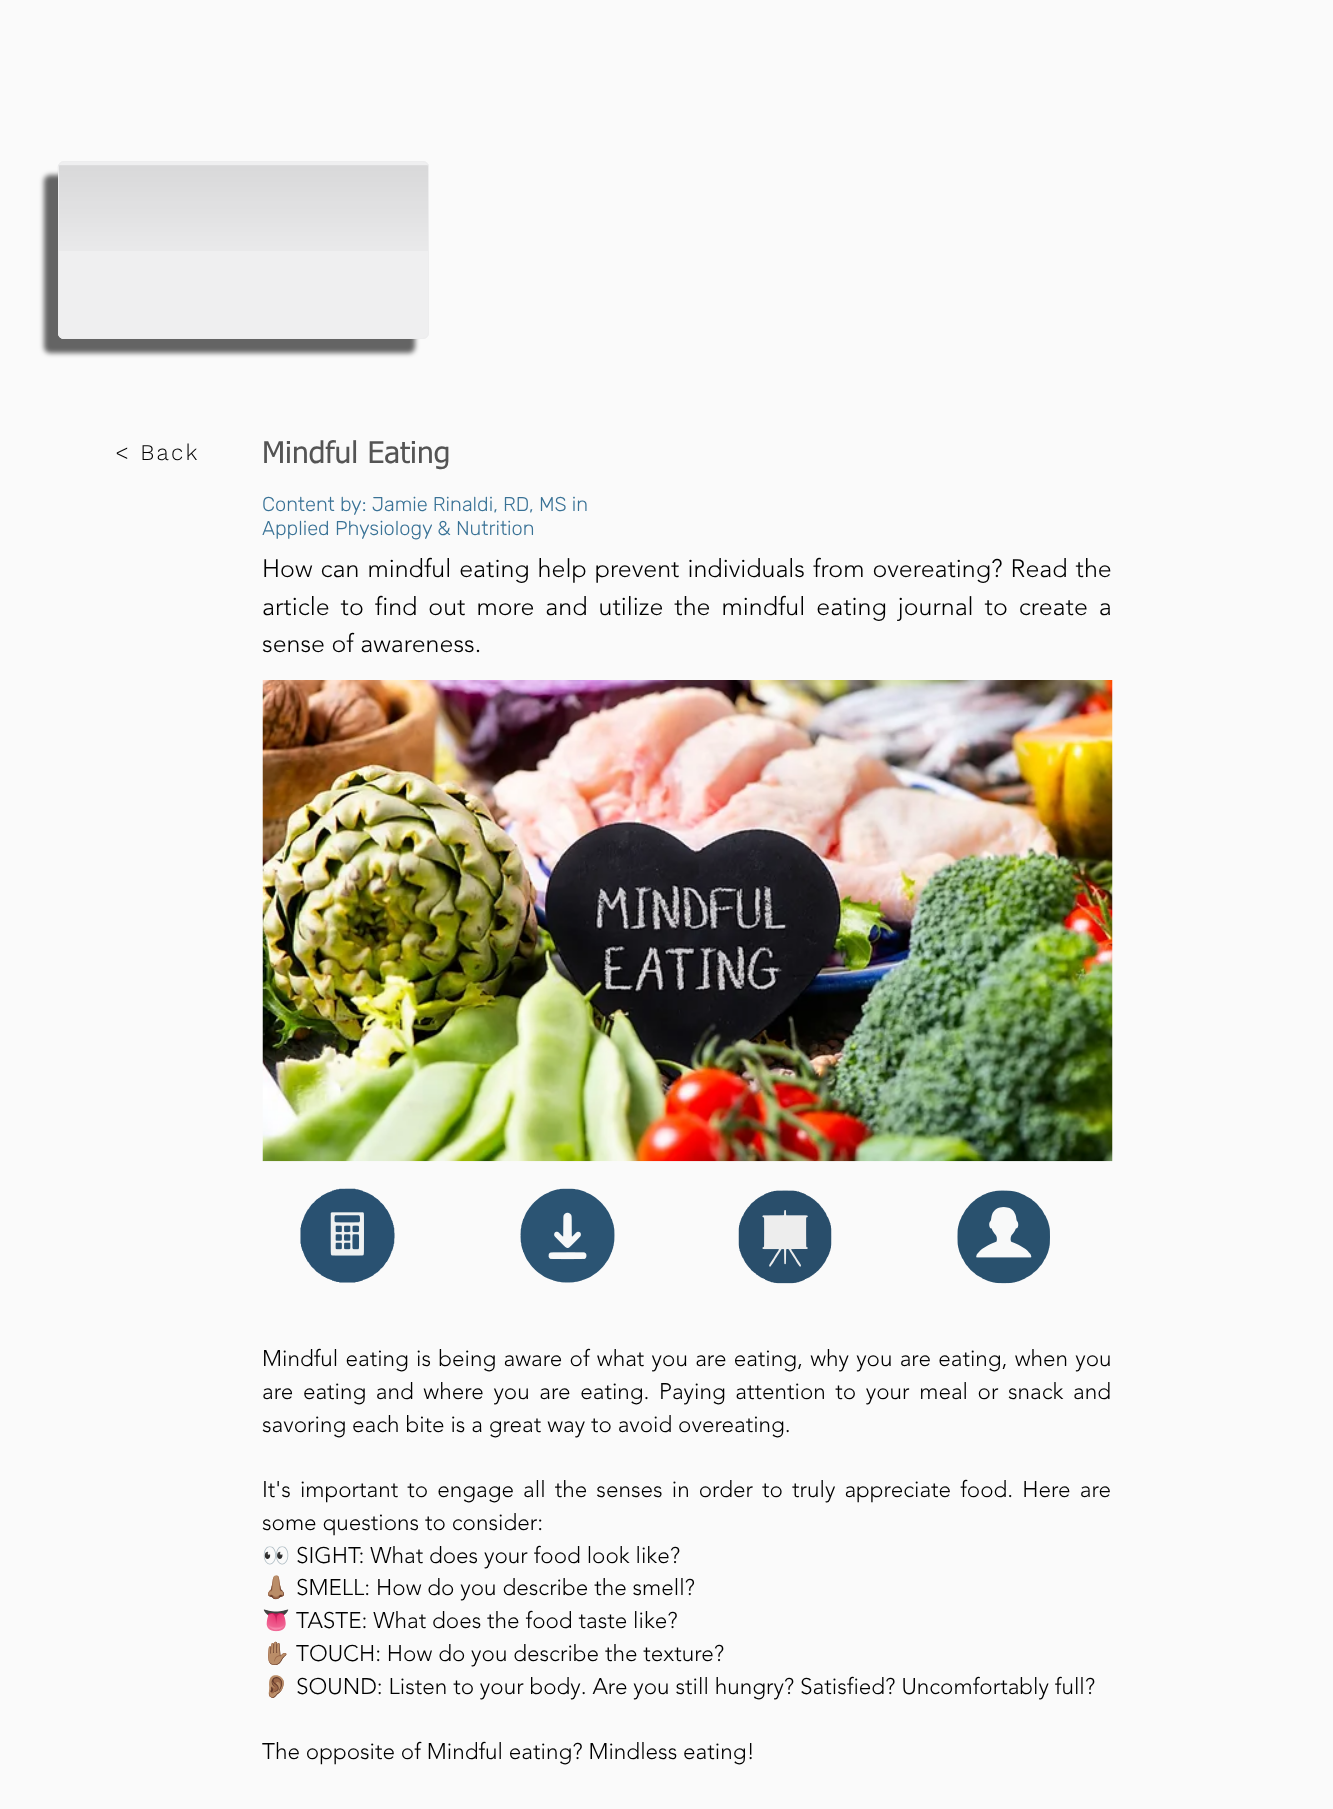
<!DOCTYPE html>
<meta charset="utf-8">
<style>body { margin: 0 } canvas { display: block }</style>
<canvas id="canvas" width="1333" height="1809"></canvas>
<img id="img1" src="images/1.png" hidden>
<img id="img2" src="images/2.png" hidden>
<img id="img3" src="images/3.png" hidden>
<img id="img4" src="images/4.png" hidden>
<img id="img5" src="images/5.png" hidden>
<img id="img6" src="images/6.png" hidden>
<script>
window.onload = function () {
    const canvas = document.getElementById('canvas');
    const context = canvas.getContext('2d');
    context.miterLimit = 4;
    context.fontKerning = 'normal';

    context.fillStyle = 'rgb(250, 250, 250)';
    context.fillRect(0, 0, 1333, 1809);
    context.save();
    context.beginPath();
    context.moveTo(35, 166);
    context.lineTo(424, 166);
    context.lineTo(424, 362);
    context.lineTo(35, 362);
    context.closePath();
    context.moveTo(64, 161);
    context.lineTo(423, 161);
    context.bezierCurveTo(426.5, 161, 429, 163.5, 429, 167);
    context.lineTo(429, 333);
    context.bezierCurveTo(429, 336.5, 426.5, 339, 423, 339);
    context.lineTo(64, 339);
    context.bezierCurveTo(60.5, 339, 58, 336.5, 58, 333);
    context.lineTo(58, 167);
    context.bezierCurveTo(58, 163.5, 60.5, 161, 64, 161);
    context.closePath();
    context.clip('evenodd');
    context.fillStyle = 'rgba(0, 0, 0, 0.6)';
    context.filter = 'blur(2.5px)';
    context.beginPath();
    context.roundRect(44, 175, 371, 178, 6);
    context.fill();
    context.filter = 'none';
    context.restore();
    context.fillStyle = 'rgba(237, 237, 238, 0.82)';
    context.beginPath();
    context.roundRect(58, 161, 371, 178, 6);
    context.fill();
    context.drawImage(document.getElementById('img1'), 57, 165, 372, 86);
    context.beginPath();
    context.roundRect(58.5, 161.5, 370, 177, 5.5);
    context.strokeStyle = 'rgb(237, 237, 238)';
    context.stroke();
    context.drawImage(document.getElementById('img2'), 262, 680, 851, 482);
    context.drawImage(document.getElementById('img3'), 300, 1188, 95, 95);
    context.drawImage(document.getElementById('img4'), 520, 1188, 95, 95);
    context.drawImage(document.getElementById('img5'), 738, 1190, 94, 94);
    context.drawImage(document.getElementById('img6'), 957, 1190, 93, 94);
    context.letterSpacing = '2.25px';
    context.font = '300 22.5px Work Sans';
    context.fillStyle = 'rgb(0, 0, 0)';
    context.fillText('< Back', 115, 460);
    context.letterSpacing = '0px';
    context.font = '30px tahoma';
    context.fillStyle = 'rgb(84, 84, 84)';
    context.fillText('Mindful Eating', 262, 463);
    context.font = '300 20px Rubik';
    context.fillStyle = 'rgb(57, 114, 150)';
    context.fillText('Content by: Jamie Rinaldi, RD, MS in', 262, 511);
    context.fillText('Applied Physiology & Nutrition', 262, 535);
    context.wordSpacing = '1.5px';
    context.font = '300 25px "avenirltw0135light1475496"';
    context.fillStyle = 'rgb(0, 0, 0)';
    context.fillText('How can mindful eating help prevent individuals from overeating? Read the', 262, 577);
    context.wordSpacing = '4.5px';
    context.fillText('article to find out more and utilize the mindful eating journal to create a', 262, 615);
    context.wordSpacing = '0px';
    context.fillText('sense of awareness.', 262, 652);
    context.wordSpacing = '1.4px';
    context.font = '300 22.5px "avenirltw0135light1475496"';
    context.fillText('Mindful eating is being aware of what you are eating, why you are eating, when you', 262, 1366);
    context.wordSpacing = '3.75px';
    context.fillText('are eating and where you are eating. Paying attention to your meal or snack and', 262, 1399);
    context.wordSpacing = '0px';
    context.fillText('savoring each bite is a great way to avoid overeating.', 262, 1432);
    context.wordSpacing = '3.25px';
    context.fillText('It\'s important to engage all the senses in order to truly appreciate food. Here are', 262, 1497);
    context.wordSpacing = '0px';
    context.fillText('some questions to consider:', 262, 1530);
    context.font = '22.5px Noto Color Emoji';
    context.fillText('👀', 262, 1563);
    context.font = '300 22.5px "avenirltw0135light1475496"';
    context.fillText('SIGHT: What does your food look like?', 296, 1563);
    context.font = '22.5px Noto Color Emoji';
    context.fillText('👃🏽', 262, 1595);
    context.font = '300 22.5px "avenirltw0135light1475496"';
    context.fillText('SMELL: How do you describe the smell?', 296, 1595);
    context.font = '22.5px Noto Color Emoji';
    context.fillText('👅', 262, 1628);
    context.font = '300 22.5px "avenirltw0135light1475496"';
    context.fillText('TASTE: What does the food taste like?', 296, 1628);
    context.font = '22.5px Noto Color Emoji';
    context.fillText('✋🏽', 262, 1661);
    context.font = '300 22.5px "avenirltw0135light1475496"';
    context.fillText('TOUCH: How do you describe the texture?', 296, 1661);
    context.font = '22.5px Noto Color Emoji';
    context.fillText('👂🏽', 262, 1694);
    context.font = '300 22.5px "avenirltw0135light1475496"';
    context.fillText('SOUND: Listen to your body. Are you still hungry? Satisfied? Uncomfortably full?', 296, 1694);
    context.fillText('The opposite of Mindful eating? Mindless eating!', 262, 1759);
};
</script>
